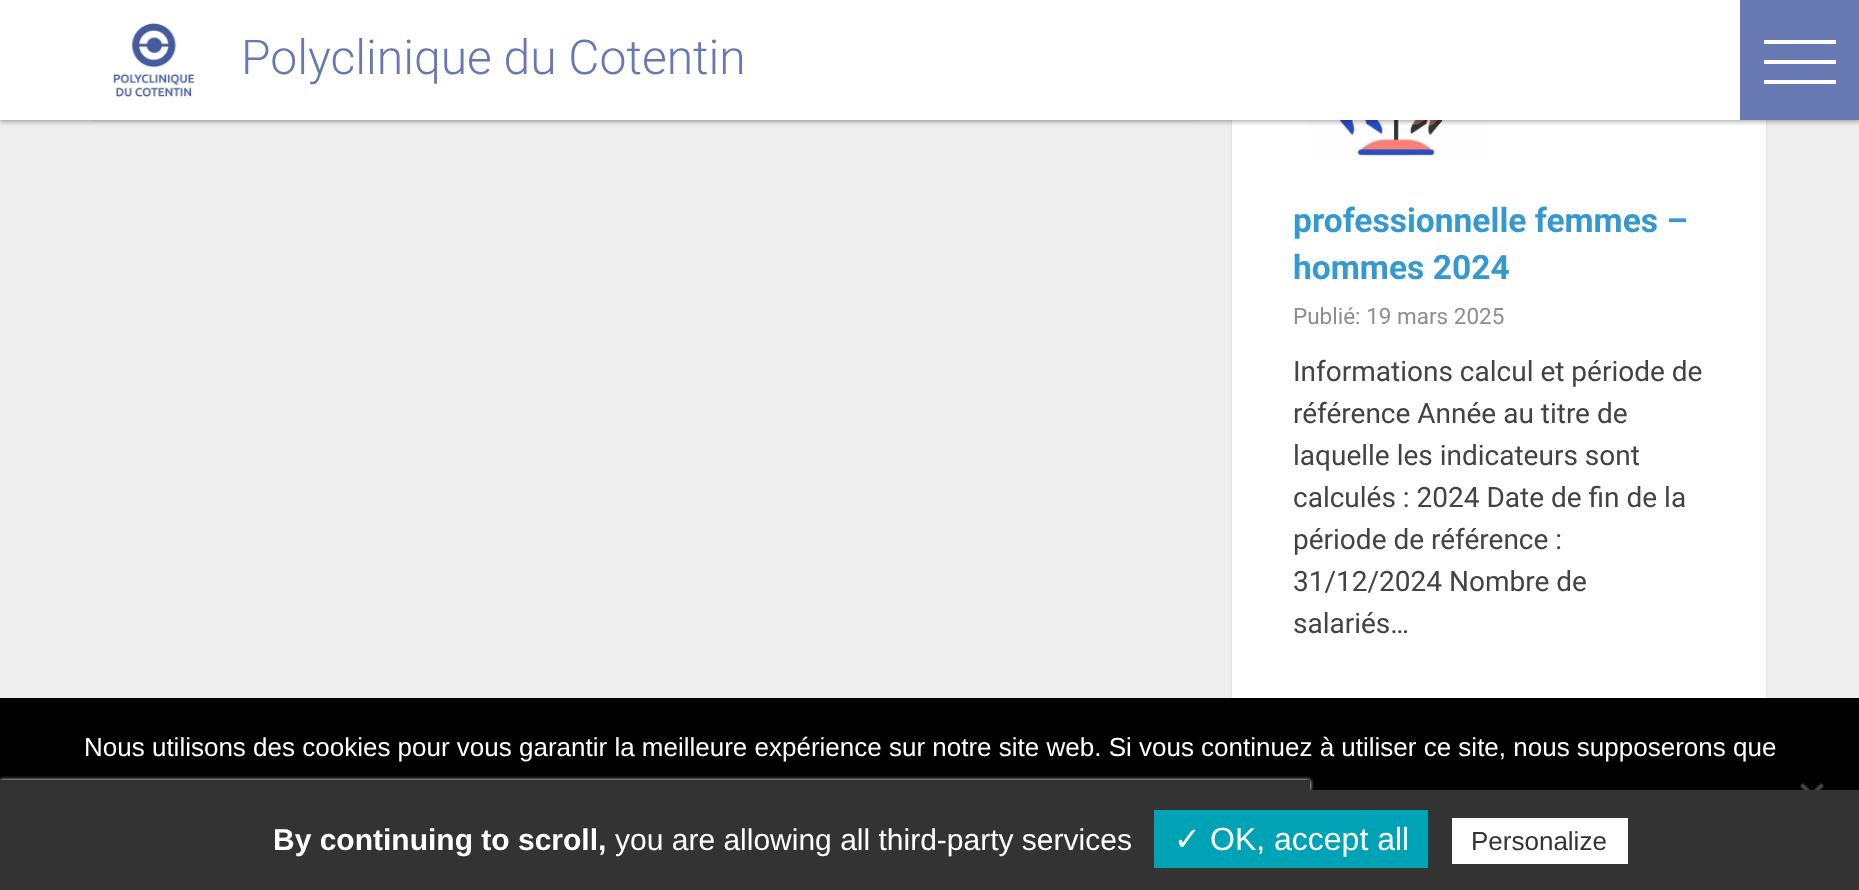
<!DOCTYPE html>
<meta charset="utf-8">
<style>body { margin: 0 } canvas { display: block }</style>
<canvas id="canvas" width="1859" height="890"></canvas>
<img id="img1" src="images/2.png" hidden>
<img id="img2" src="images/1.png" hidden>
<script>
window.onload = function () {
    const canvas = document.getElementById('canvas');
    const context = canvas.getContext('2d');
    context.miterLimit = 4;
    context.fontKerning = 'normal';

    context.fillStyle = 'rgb(238, 238, 238)';
    context.fillRect(0, 0, 1859, 890);
    context.fillStyle = 'rgba(0, 0, 0, 0.1)';
    context.filter = 'blur(1px)';
    context.beginPath();
    context.rect(1232, -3, 534, 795);
    context.fill();
    context.filter = 'none';
    context.fillStyle = 'rgb(255, 255, 255)';
    context.fillRect(1232, 120, 534, 578);
    context.drawImage(document.getElementById('img1'), 1308, 120, 180, 40);
    context.fillStyle = 'rgba(0, 0, 0, 0.3)';
    context.filter = 'blur(2px)';
    context.beginPath();
    context.rect(0, 2, 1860, 120);
    context.fill();
    context.filter = 'none';
    context.fillStyle = 'rgba(0, 0, 0, 0.1)';
    context.filter = 'blur(1px)';
    context.beginPath();
    context.rect(94, -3, 1104, 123);
    context.fill();
    context.filter = 'none';
    context.fillStyle = 'rgb(255, 255, 255)';
    context.fillRect(0, 0, 1740, 120);
    context.drawImage(document.getElementById('img2'), 113, 23, 83, 75);
    context.fillStyle = 'rgb(103, 120, 178)';
    context.fillRect(1740, 0, 119, 120);
    context.fillStyle = 'rgb(255, 255, 255)';
    context.fillRect(1764, 40, 72, 4);
    context.fillRect(1764, 60, 72, 4);
    context.fillRect(1764, 80, 72, 4);
    context.fillStyle = 'rgb(0, 0, 0)';
    context.fillRect(0, 698, 1859, 92);
    context.fillStyle = 'rgb(64, 64, 64)';
    context.beginPath();
    context.moveTo(1821, 783);
    context.lineTo(1824, 786);
    context.lineTo(1803, 807);
    context.lineTo(1800, 804);
    context.closePath();
    context.fill();
    context.beginPath();
    context.moveTo(1800, 786);
    context.lineTo(1803, 783);
    context.lineTo(1824, 804);
    context.lineTo(1821, 807);
    context.closePath();
    context.fill();
    context.fillStyle = 'rgb(85, 85, 85)';
    context.filter = 'blur(2px)';
    context.beginPath();
    context.rect(0, 782, 1310, 10);
    context.fill();
    context.filter = 'none';
    context.fillStyle = 'rgb(255, 255, 255)';
    context.filter = 'blur(2px)';
    context.beginPath();
    context.rect(0, 780, 1310, 10);
    context.fill();
    context.filter = 'none';
    context.fillStyle = 'rgb(51, 51, 51)';
    context.fillRect(0, 780, 1310, 10);
    context.fillRect(0, 790, 1859, 100);
    context.fillStyle = 'rgb(0, 162, 181)';
    context.fillRect(1154, 810, 274, 58);
    context.fillStyle = 'rgb(255, 255, 255)';
    context.fillRect(1452, 818, 176, 46);
    context.font = '300 48px Roboto';
    context.fillStyle = 'rgb(103, 120, 178)';
    context.fillText('Polyclinique du Cotentin', 241, 74);
    context.font = 'bold 33.6px Roboto';
    context.fillStyle = 'rgb(53, 152, 206)';
    context.fillText('professionnelle femmes –', 1293, 232);
    context.fillText('hommes 2024', 1293, 279);
    context.font = '22.5px Roboto';
    context.fillStyle = 'rgb(142, 142, 142)';
    context.fillText('Publié: 19 mars 2025', 1293, 324);
    context.font = '28px Roboto';
    context.fillStyle = 'rgb(67, 67, 67)';
    context.fillText('Informations calcul et période de', 1293, 381);
    context.fillText('référence Année au titre de', 1293, 423);
    context.fillText('laquelle les indicateurs sont', 1293, 465);
    context.fillText('calculés : 2024 Date de fin de la', 1293, 507);
    context.fillText('période de référence :', 1293, 549);
    context.fillText('31/12/2024 Nombre de', 1293, 591);
    context.fillText('salariés…', 1293, 633);
    context.font = '26px Liberation Sans';
    context.fillStyle = 'rgb(255, 255, 255)';
    context.fillText('Nous utilisons des cookies pour vous garantir la meilleure expérience sur notre site web. Si vous continuez à utiliser ce site, nous supposerons que', 84, 756);
    context.font = 'bold 30px Liberation Sans';
    context.fillText('By continuing to scroll,', 273, 850);
    context.font = '30px Liberation Sans';
    context.fillText('you are allowing all third-party services', 615, 850);
    context.font = '32px DejaVu Sans';
    context.fillText('✓', 1174, 850);
    context.font = '32px Liberation Sans';
    context.fillText('OK, accept all', 1210, 850);
    context.font = '26px Liberation Sans';
    context.fillStyle = 'rgb(51, 51, 51)';
    context.fillText('Personalize', 1471, 850);
};
</script>
